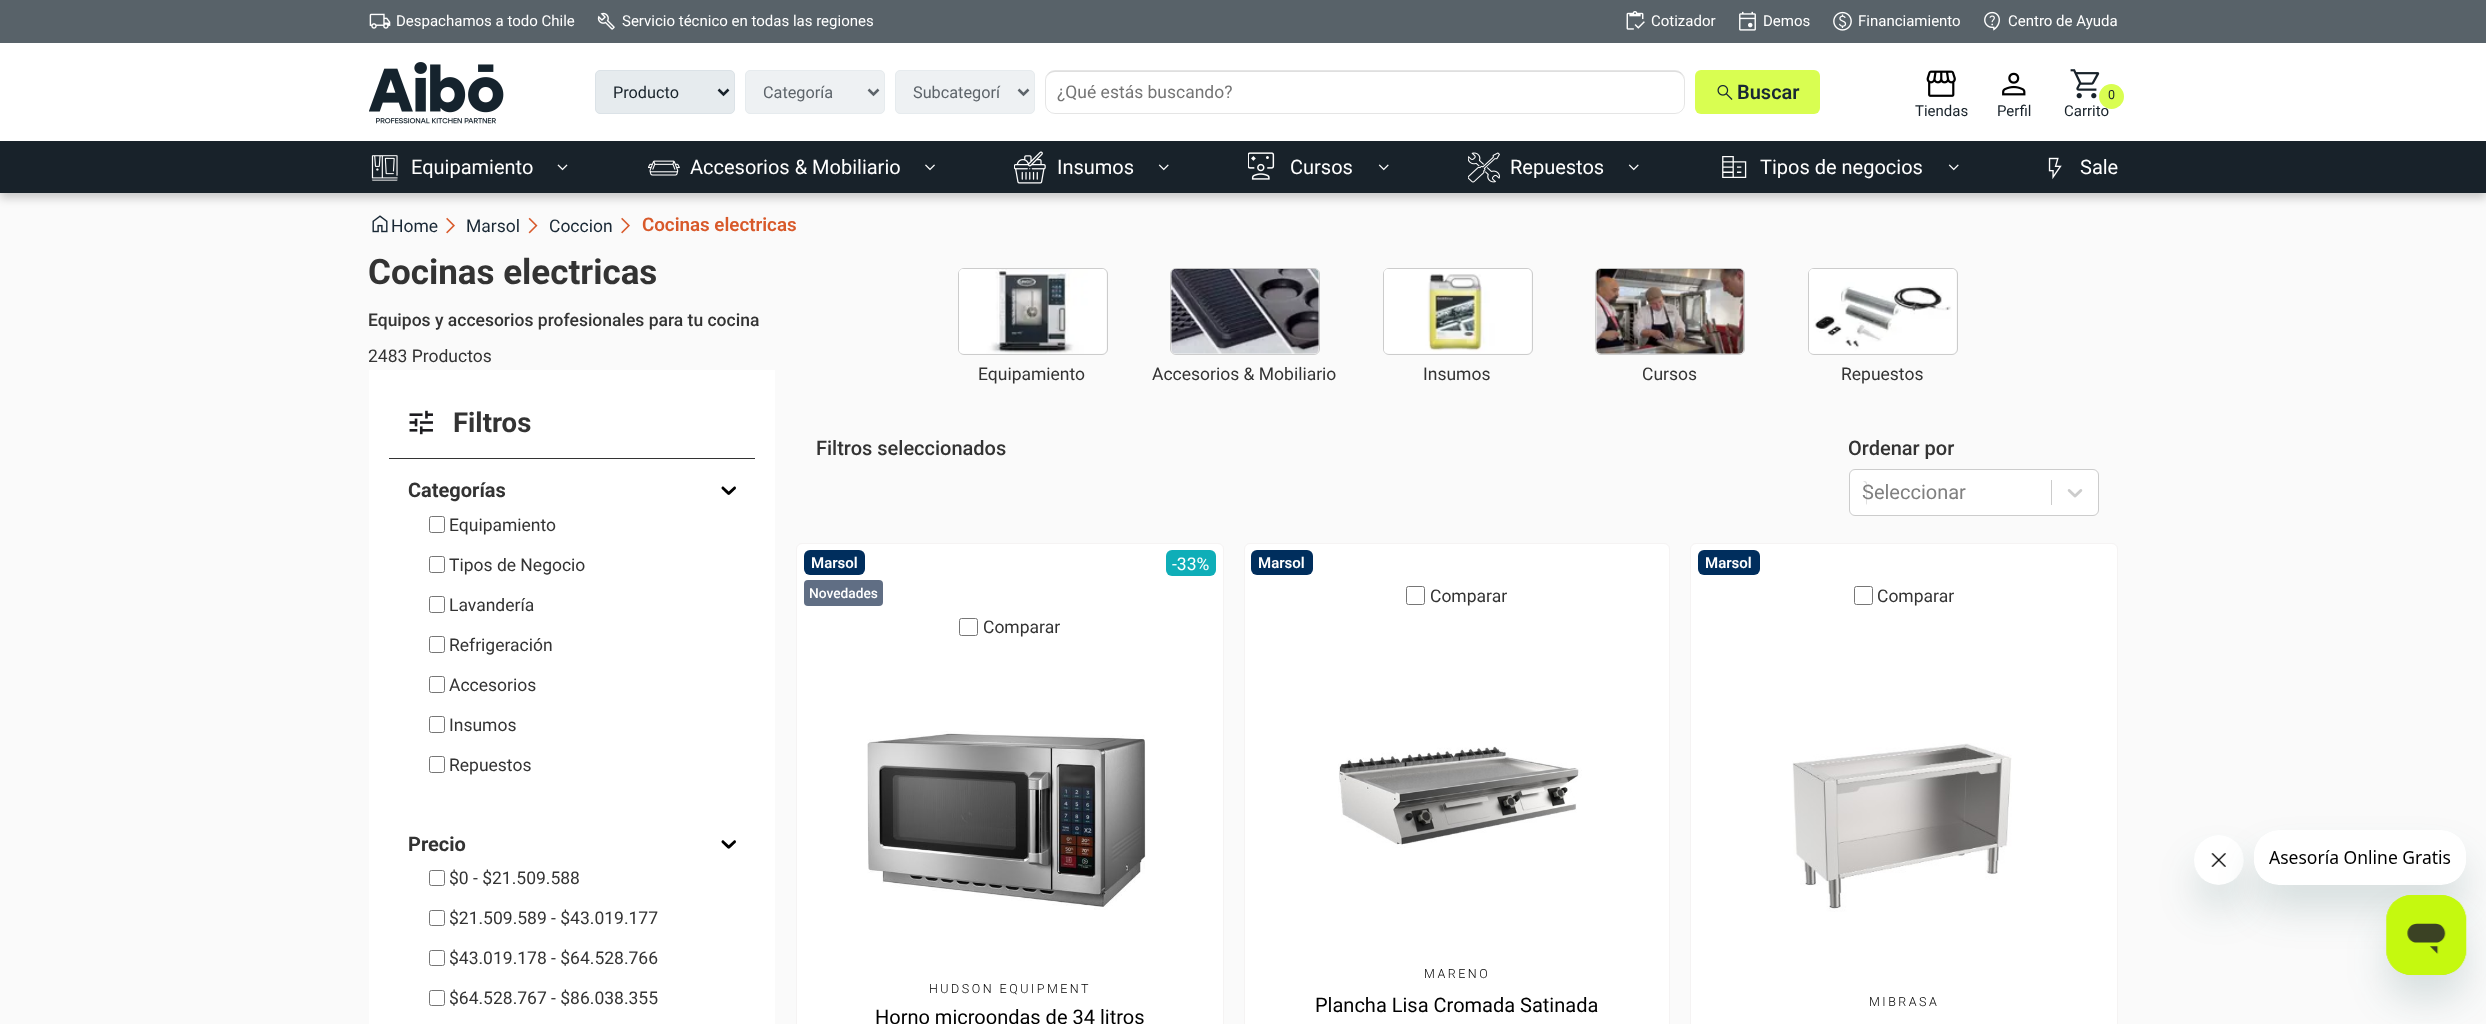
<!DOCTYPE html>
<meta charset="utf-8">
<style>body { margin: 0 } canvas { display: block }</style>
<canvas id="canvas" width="2486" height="1024"></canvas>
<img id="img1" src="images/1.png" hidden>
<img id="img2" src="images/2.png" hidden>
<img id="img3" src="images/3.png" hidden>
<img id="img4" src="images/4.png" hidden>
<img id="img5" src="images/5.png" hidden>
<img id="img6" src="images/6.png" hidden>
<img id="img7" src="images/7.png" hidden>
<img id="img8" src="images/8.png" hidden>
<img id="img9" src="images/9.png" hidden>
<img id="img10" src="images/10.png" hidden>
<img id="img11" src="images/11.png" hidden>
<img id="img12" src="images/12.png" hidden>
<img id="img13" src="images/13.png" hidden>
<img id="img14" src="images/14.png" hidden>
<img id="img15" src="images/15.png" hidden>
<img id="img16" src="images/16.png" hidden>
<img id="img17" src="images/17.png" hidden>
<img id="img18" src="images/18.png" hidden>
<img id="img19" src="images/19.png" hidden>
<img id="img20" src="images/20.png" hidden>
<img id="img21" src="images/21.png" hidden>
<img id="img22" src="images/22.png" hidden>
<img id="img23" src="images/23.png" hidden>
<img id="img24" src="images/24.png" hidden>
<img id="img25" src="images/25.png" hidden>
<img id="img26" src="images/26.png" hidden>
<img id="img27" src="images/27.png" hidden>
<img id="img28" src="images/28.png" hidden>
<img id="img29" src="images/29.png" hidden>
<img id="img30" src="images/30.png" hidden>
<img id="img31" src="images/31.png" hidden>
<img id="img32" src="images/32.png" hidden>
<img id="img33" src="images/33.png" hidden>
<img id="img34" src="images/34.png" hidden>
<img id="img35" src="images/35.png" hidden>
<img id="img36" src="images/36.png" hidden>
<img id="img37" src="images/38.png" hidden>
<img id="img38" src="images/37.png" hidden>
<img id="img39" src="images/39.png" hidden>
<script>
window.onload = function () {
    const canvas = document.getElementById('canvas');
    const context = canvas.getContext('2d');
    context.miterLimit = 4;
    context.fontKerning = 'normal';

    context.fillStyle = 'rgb(250, 250, 250)';
    context.fillRect(0, 0, 2486, 1024);
    context.fillStyle = 'rgba(0, 0, 0, 0.2)';
    context.filter = 'blur(5px)';
    context.beginPath();
    context.rect(0, 5, 2486, 193);
    context.fill();
    context.filter = 'none';
    context.fillStyle = 'rgb(255, 255, 255)';
    context.fillRect(0, 43, 2486, 98);
    context.fillStyle = 'rgb(88, 98, 105)';
    context.fillRect(0, 0, 2486, 43);
    context.drawImage(document.getElementById('img1'), 369, 13, 22, 16);
    context.drawImage(document.getElementById('img2'), 597, 12, 18, 18);
    context.drawImage(document.getElementById('img3'), 1626, 11, 19, 19);
    context.drawImage(document.getElementById('img4'), 1739, 11, 17, 20);
    context.drawImage(document.getElementById('img5'), 1833, 11, 19, 20);
    context.drawImage(document.getElementById('img6'), 1984, 11, 16, 20);
    context.drawImage(document.getElementById('img7'), 369, 62, 135, 62);
    context.fillStyle = 'rgb(230, 235, 238)';
    context.beginPath();
    context.roundRect(595.5, 70.5, 139, 43, 4.5);
    context.fill();
    context.strokeStyle = 'rgb(219, 226, 231)';
    context.stroke();
    context.beginPath();
    context.moveTo(718.5, 89.5);
    context.lineTo(723.5, 94.5);
    context.lineTo(728.5, 89.5);
    context.strokeStyle = 'rgb(24, 34, 42)';
    context.lineWidth = 2.5;
    context.stroke();
    context.fillStyle = 'rgb(238, 241, 243)';
    context.beginPath();
    context.roundRect(745.5, 70.5, 139, 43, 4.5);
    context.fill();
    context.strokeStyle = 'rgb(230, 235, 238)';
    context.lineWidth = 1;
    context.stroke();
    context.beginPath();
    context.moveTo(868.5, 89.5);
    context.lineTo(873.5, 94.5);
    context.lineTo(878.5, 89.5);
    context.strokeStyle = 'rgb(93, 100, 106)';
    context.lineWidth = 2.5;
    context.stroke();
    context.beginPath();
    context.roundRect(895.5, 70.5, 139, 43, 4.5);
    context.fill();
    context.strokeStyle = 'rgb(230, 235, 238)';
    context.lineWidth = 1;
    context.stroke();
    context.beginPath();
    context.moveTo(1018.5, 89.5);
    context.lineTo(1023.5, 94.5);
    context.lineTo(1028.5, 89.5);
    context.strokeStyle = 'rgb(93, 100, 106)';
    context.lineWidth = 2.5;
    context.stroke();
    context.fillStyle = 'rgb(223, 223, 223)';
    context.beginPath();
    context.moveTo(1055, 72);
    context.lineTo(1675, 72);
    context.bezierCurveTo(1680, 72, 1684, 76, 1684, 81);
    context.bezierCurveTo(1684, 76, 1681, 71, 1675, 71);
    context.lineTo(1055, 71);
    context.bezierCurveTo(1049, 71, 1046, 76, 1046, 81);
    context.bezierCurveTo(1046, 76, 1050, 72, 1055, 72);
    context.closePath();
    context.fill();
    context.beginPath();
    context.roundRect(1045.5, 70.5, 639, 43, 9.5);
    context.strokeStyle = 'rgba(0, 0, 0, 0.1)';
    context.lineWidth = 1;
    context.stroke();
    context.fillStyle = 'rgb(217, 254, 81)';
    context.beginPath();
    context.roundRect(1695, 70, 125, 44, 6);
    context.fill();
    context.drawImage(document.getElementById('img8'), 1717, 85, 16, 15);
    context.drawImage(document.getElementById('img9'), 1926, 70, 30, 27);
    context.drawImage(document.getElementById('img10'), 2002, 72, 24, 24);
    context.drawImage(document.getElementById('img11'), 2070, 69, 30, 30);
    context.fillStyle = 'rgb(24, 34, 42)';
    context.fillRect(0, 141, 2486, 52);
    context.drawImage(document.getElementById('img12'), 371, 155, 27, 26);
    context.drawImage(document.getElementById('img13'), 557, 164, 11, 7);
    context.drawImage(document.getElementById('img14'), 648, 160, 32, 16);
    context.drawImage(document.getElementById('img15'), 925, 164, 10, 7);
    context.drawImage(document.getElementById('img16'), 1014, 151, 32, 33);
    context.drawImage(document.getElementById('img17'), 1158, 164, 11, 7);
    context.drawImage(document.getElementById('img18'), 1248, 152, 27, 28);
    context.drawImage(document.getElementById('img17'), 1378, 164, 11, 7);
    context.drawImage(document.getElementById('img19'), 1468, 152, 32, 31);
    context.drawImage(document.getElementById('img17'), 1628, 164, 11, 7);
    context.drawImage(document.getElementById('img20'), 1722, 156, 25, 22);
    context.drawImage(document.getElementById('img17'), 1948, 164, 11, 7);
    context.drawImage(document.getElementById('img21'), 2048, 157, 14, 23);
    context.drawImage(document.getElementById('img22'), 372, 215, 16, 18);
    context.drawImage(document.getElementById('img23'), 446, 217, 9, 17);
    context.drawImage(document.getElementById('img24'), 528, 217, 10, 17);
    context.drawImage(document.getElementById('img23'), 621, 217, 9, 17);
    context.fillStyle = 'rgb(255, 255, 255)';
    context.fillRect(369, 370, 406, 654);
    context.fillStyle = 'rgb(51, 51, 51)';
    context.fillRect(389, 458, 366, 1);
    context.drawImage(document.getElementById('img25'), 409, 410, 24, 25);
    context.drawImage(document.getElementById('img26'), 721, 486, 15, 9);
    context.beginPath();
    context.roundRect(429.5, 516.5, 15, 16, 2);
    context.strokeStyle = 'rgb(118, 118, 118)';
    context.stroke();
    context.beginPath();
    context.roundRect(429.5, 556.5, 15, 16, 2);
    context.stroke();
    context.beginPath();
    context.roundRect(429.5, 596.5, 15, 16, 2);
    context.stroke();
    context.beginPath();
    context.roundRect(429.5, 636.5, 15, 16, 2);
    context.stroke();
    context.beginPath();
    context.roundRect(429.5, 676.5, 15, 16, 2);
    context.stroke();
    context.beginPath();
    context.roundRect(429.5, 716.5, 15, 16, 2);
    context.stroke();
    context.beginPath();
    context.roundRect(429.5, 756.5, 15, 16, 2);
    context.stroke();
    context.drawImage(document.getElementById('img27'), 721, 840, 15, 9);
    context.beginPath();
    context.roundRect(429.5, 870.5, 15, 15, 2);
    context.stroke();
    context.beginPath();
    context.roundRect(429.5, 910.5, 15, 15, 2);
    context.stroke();
    context.beginPath();
    context.roundRect(429.5, 950.5, 15, 15, 2);
    context.stroke();
    context.beginPath();
    context.roundRect(429.5, 990.5, 15, 15, 2);
    context.stroke();
    context.beginPath();
    context.roundRect(958.5, 268.5, 149, 86, 5.5);
    context.strokeStyle = 'rgb(204, 204, 204)';
    context.stroke();
    context.drawImage(document.getElementById('img28'), 959, 269, 147, 85);
    context.beginPath();
    context.roundRect(1170.5, 268.5, 149, 86, 5.5);
    context.stroke();
    context.drawImage(document.getElementById('img29'), 1171, 268, 148, 86);
    context.beginPath();
    context.roundRect(1383.5, 268.5, 149, 86, 5.5);
    context.stroke();
    context.drawImage(document.getElementById('img30'), 1384, 269, 147, 85);
    context.beginPath();
    context.roundRect(1595.5, 268.5, 149, 86, 5.5);
    context.stroke();
    context.drawImage(document.getElementById('img31'), 1596, 268, 148, 86);
    context.beginPath();
    context.roundRect(1808.5, 268.5, 149, 86, 5.5);
    context.stroke();
    context.drawImage(document.getElementById('img32'), 1809, 269, 147, 85);
    context.fillStyle = 'rgb(255, 255, 255)';
    context.beginPath();
    context.roundRect(1849.5, 469.5, 249, 46, 5.5);
    context.fill();
    context.stroke();
    context.fillStyle = 'rgba(0, 0, 0, 0.12)';
    context.beginPath();
    context.moveTo(1864, 482);
    context.bezierCurveTo(1866.5, 482, 1866, 486, 1866, 487.5);
    context.lineTo(1866, 505);
    context.bezierCurveTo(1866.5, 504.5, 1867, 504, 1867, 503);
    context.lineTo(1867, 483);
    context.bezierCurveTo(1867, 482, 1866, 481, 1865, 481);
    context.bezierCurveTo(1864, 481, 1863.5, 481.5, 1863, 482);
    context.closePath();
    context.fill();
    context.fillStyle = 'rgb(204, 204, 204)';
    context.fillRect(2051, 480, 1, 25);
    context.drawImage(document.getElementById('img33'), 2067, 489, 16, 9);
    context.fillStyle = 'rgb(255, 255, 255)';
    context.beginPath();
    context.roundRect(796.5, 543.5, 427, 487, 5.5);
    context.fill();
    context.strokeStyle = 'rgb(245, 243, 243)';
    context.stroke();
    context.fillStyle = 'rgb(0, 46, 93)';
    context.beginPath();
    context.roundRect(804, 550, 61, 25, 6);
    context.fill();
    context.fillStyle = 'rgb(96, 110, 132)';
    context.beginPath();
    context.roundRect(804, 580, 79, 26, 4);
    context.fill();
    context.fillStyle = 'rgb(15, 174, 184)';
    context.beginPath();
    context.roundRect(1166, 550, 50, 26, 6);
    context.fill();
    context.drawImage(document.getElementById('img34'), 867, 731, 279, 179);
    context.beginPath();
    context.roundRect(959.5, 618.5, 18, 17, 2);
    context.strokeStyle = 'rgb(118, 118, 118)';
    context.stroke();
    context.fillStyle = 'rgb(255, 255, 255)';
    context.beginPath();
    context.roundRect(1244.5, 543.5, 425, 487, 5.5);
    context.fill();
    context.strokeStyle = 'rgb(245, 243, 243)';
    context.stroke();
    context.fillStyle = 'rgb(0, 46, 93)';
    context.beginPath();
    context.roundRect(1251, 550, 62, 25, 6);
    context.fill();
    context.drawImage(document.getElementById('img35'), 1338, 746, 244, 102);
    context.beginPath();
    context.roundRect(1406.5, 586.5, 18, 18, 2);
    context.strokeStyle = 'rgb(118, 118, 118)';
    context.stroke();
    context.fillStyle = 'rgb(255, 255, 255)';
    context.beginPath();
    context.roundRect(1690.5, 543.5, 427, 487, 5.5);
    context.fill();
    context.strokeStyle = 'rgb(245, 243, 243)';
    context.stroke();
    context.fillStyle = 'rgb(0, 46, 93)';
    context.beginPath();
    context.roundRect(1698, 550, 62, 25, 6);
    context.fill();
    context.drawImage(document.getElementById('img36'), 1792, 743, 220, 169);
    context.beginPath();
    context.roundRect(1854.5, 586.5, 18, 18, 2);
    context.strokeStyle = 'rgb(118, 118, 118)';
    context.stroke();
    context.fillStyle = 'rgba(23, 73, 77, 0.15)';
    context.filter = 'blur(19px)';
    context.beginPath();
    context.roundRect(2194, 860, 50, 50, 25);
    context.fill();
    context.filter = 'none';
    context.drawImage(document.getElementById('img37'), 2194, 835, 50, 50);
    context.filter = 'blur(19px)';
    context.beginPath();
    context.roundRect(2254, 855, 212, 55, 25);
    context.fill();
    context.filter = 'none';
    context.drawImage(document.getElementById('img38'), 2254, 830, 212, 55);
    context.filter = 'blur(19px)';
    context.beginPath();
    context.roundRect(2386, 920, 80, 80, 25);
    context.fill();
    context.filter = 'none';
    context.drawImage(document.getElementById('img39'), 2386, 895, 81, 80);
    context.font = '15px Roboto';
    context.fillStyle = 'rgb(255, 255, 255)';
    context.fillText('Despachamos a todo Chile', 396, 26);
    context.fillText('Servicio técnico en todas las regiones', 622, 26);
    context.fillText('Cotizador', 1651, 26);
    context.fillText('Demos', 1763, 26);
    context.fillText('Financiamiento', 1858, 26);
    context.fillText('Centro de Ayuda', 2008, 26);
    context.font = '16.25px Roboto';
    context.fillStyle = 'rgb(24, 34, 42)';
    context.fillText('Producto', 613, 98);
    context.fillStyle = 'rgb(93, 100, 106)';
    context.fillText('Categoría', 763, 98);
    context.fillText('Subcategorí', 913, 98);
    context.font = '17.5px Roboto';
    context.fillStyle = 'rgb(117, 117, 117)';
    context.fillText('¿Qué estás buscando?', 1057, 98);
    context.font = '600 20px Roboto';
    context.fillStyle = 'rgb(24, 39, 52)';
    context.fillText('Buscar', 1737, 99);
    context.font = '15px Roboto';
    context.fillStyle = 'rgb(24, 34, 42)';
    context.fillText('Tiendas', 1915, 116);
    context.fillText('Perfil', 1997, 116);
    context.fillText('Carrito', 2064, 116);
    context.fillStyle = 'rgb(217, 254, 81)';
    context.beginPath();
    context.arc(2111.5, 96.5, 12.5, 0, 2 * Math.PI);
    context.fill();
    context.font = '12.5px Roboto';
    context.fillStyle = 'rgb(24, 34, 42)';
    context.fillText('0', 2108, 99);
    context.font = '20px Roboto';
    context.fillStyle = 'rgb(255, 255, 255)';
    context.fillText('Equipamiento', 411, 174);
    context.fillText('Accesorios & Mobiliario', 690, 174);
    context.fillText('Insumos', 1057, 174);
    context.fillText('Cursos', 1290, 174);
    context.fillText('Repuestos', 1510, 174);
    context.fillText('Tipos de negocios', 1760, 174);
    context.fillText('Sale', 2080, 174);
    context.font = '17.5px Roboto';
    context.fillStyle = 'rgb(24, 39, 52)';
    context.fillText('Home', 391, 232);
    context.fillText('Marsol', 466, 232);
    context.fillText('Coccion', 549, 232);
    context.font = '600 18.75px Roboto';
    context.fillStyle = 'rgb(216, 89, 42)';
    context.fillText('Cocinas electricas', 642, 231);
    context.font = 'bold 35px Roboto';
    context.fillStyle = 'rgb(51, 51, 51)';
    context.fillText('Cocinas electricas', 368, 284);
    context.font = '500 17.5px Roboto';
    context.fillText('Equipos y accesorios profesionales para tu cocina', 368, 326);
    context.font = '17.5px Roboto';
    context.fillText('2483 Productos', 368, 362);
    context.font = 'bold 27.5px Roboto';
    context.fillText('Filtros', 453, 432);
    context.font = 'bold 20px Roboto';
    context.fillText('Categorías', 408, 497);
    context.font = '17.5px Roboto';
    context.fillText('Equipamiento', 449, 531);
    context.fillText('Tipos de Negocio', 449, 571);
    context.fillText('Lavandería', 449, 611);
    context.fillText('Refrigeración', 449, 651);
    context.fillText('Accesorios', 449, 691);
    context.fillText('Insumos', 449, 731);
    context.fillText('Repuestos', 449, 771);
    context.font = 'bold 20px Roboto';
    context.fillText('Precio', 408, 851);
    context.font = '17.5px Roboto';
    context.fillText('$0 - $21.509.588', 449, 884);
    context.fillText('$21.509.589 - $43.019.177', 449, 924);
    context.fillText('$43.019.178 - $64.528.766', 449, 964);
    context.fillText('$64.528.767 - $86.038.355', 449, 1004);
    context.fillText('Equipamiento', 978, 380);
    context.fillText('Accesorios & Mobiliario', 1152, 380);
    context.fillText('Insumos', 1423, 380);
    context.fillText('Cursos', 1642, 380);
    context.fillText('Repuestos', 1841, 380);
    context.font = '500 20px Roboto';
    context.fillText('Filtros seleccionados', 816, 455);
    context.fillText('Ordenar por', 1848, 455);
    context.font = '20px Roboto';
    context.fillStyle = 'rgb(128, 128, 128)';
    context.fillText('Seleccionar', 1862, 499);
    context.font = '600 15px Roboto';
    context.fillStyle = 'rgb(255, 255, 255)';
    context.fillText('Marsol', 811, 568);
    context.font = '500 13.75px Roboto';
    context.fillText('Novedades', 809, 598);
    context.font = '17.5px Roboto';
    context.fillText('-33%', 1172, 570);
    context.letterSpacing = '2.5px';
    context.font = '300 12.5px Roboto';
    context.fillStyle = 'rgb(0, 0, 0)';
    context.fillText('HUDSON EQUIPMENT', 929, 993);
    context.letterSpacing = '0px';
    context.font = '20px Roboto';
    context.fillText('Horno microondas de 34 litros', 875, 1024);
    context.font = '17.5px Roboto';
    context.fillStyle = 'rgb(51, 51, 51)';
    context.fillText('Comparar', 983, 633);
    context.font = '600 15px Roboto';
    context.fillStyle = 'rgb(255, 255, 255)';
    context.fillText('Marsol', 1258, 568);
    context.letterSpacing = '2.5px';
    context.font = '300 12.5px Roboto';
    context.fillStyle = 'rgb(0, 0, 0)';
    context.fillText('MARENO', 1424, 978);
    context.letterSpacing = '0px';
    context.font = '20px Roboto';
    context.fillText('Plancha Lisa Cromada Satinada', 1315, 1012);
    context.font = '17.5px Roboto';
    context.fillStyle = 'rgb(51, 51, 51)';
    context.fillText('Comparar', 1430, 602);
    context.font = '600 15px Roboto';
    context.fillStyle = 'rgb(255, 255, 255)';
    context.fillText('Marsol', 1705, 568);
    context.letterSpacing = '2.5px';
    context.font = '300 12.5px Roboto';
    context.fillStyle = 'rgb(0, 0, 0)';
    context.fillText('MIBRASA', 1869, 1006);
    context.letterSpacing = '0px';
    context.font = '17.5px Roboto';
    context.fillStyle = 'rgb(51, 51, 51)';
    context.fillText('Comparar', 1877, 602);
};
</script>
